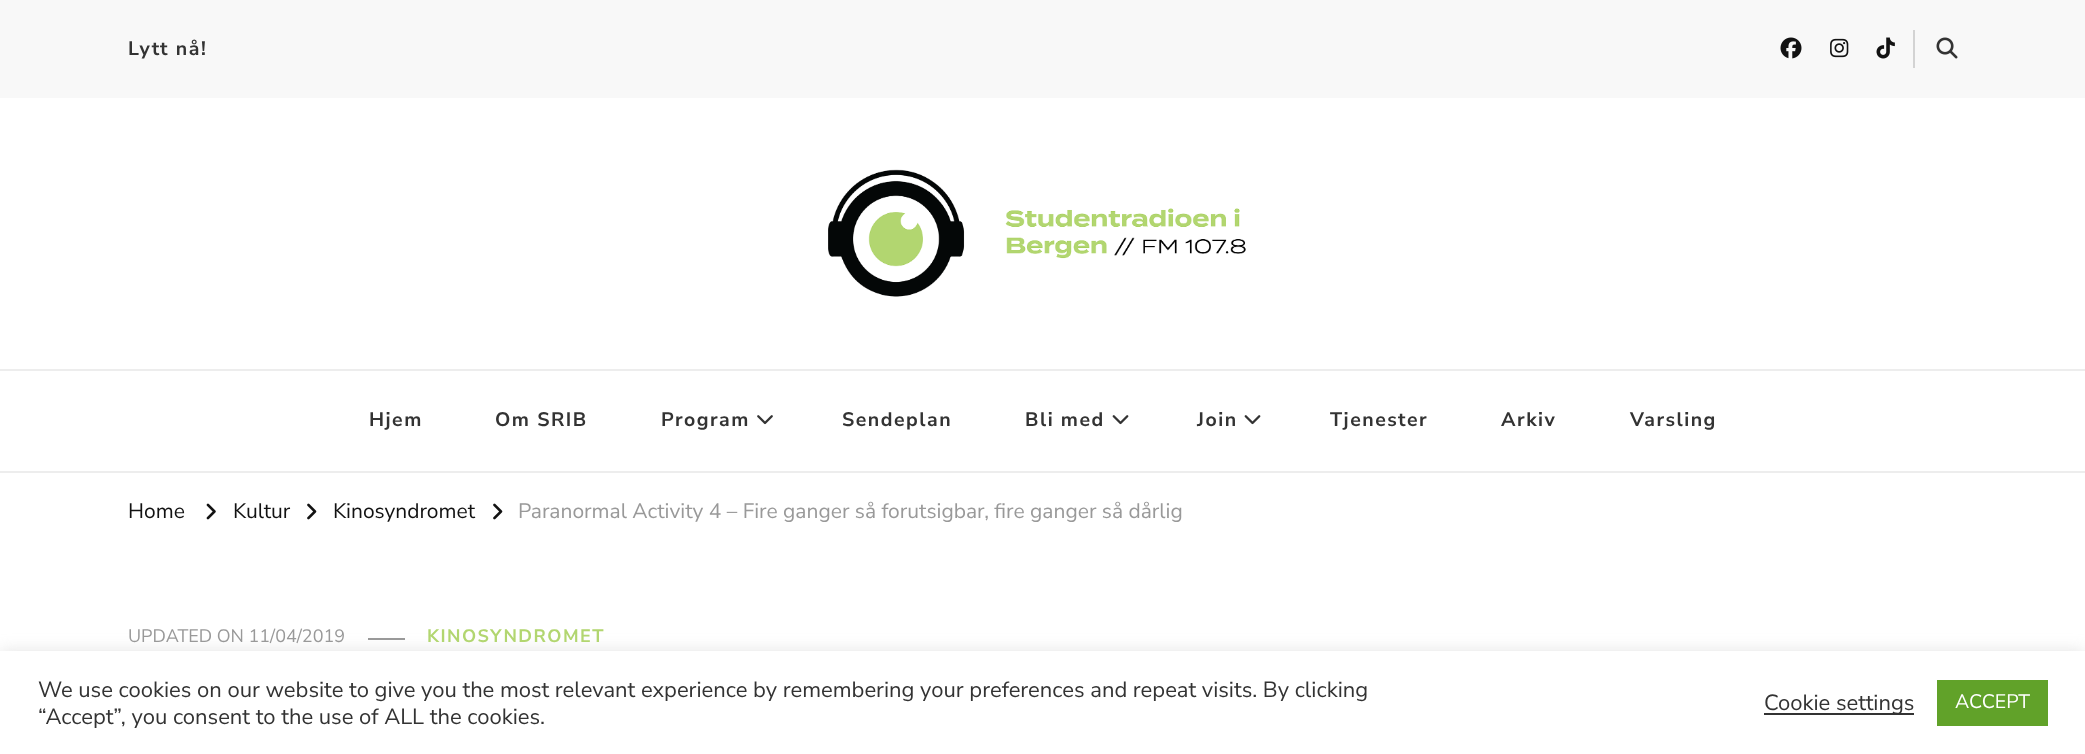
<!DOCTYPE html>
<meta charset="utf-8">
<style>body { margin: 0 } canvas { display: block }</style>
<canvas id="canvas" width="2085" height="754"></canvas>
<img id="img1" src="images/1.png" hidden>
<img id="img2" src="images/2.png" hidden>
<img id="img3" src="images/3.png" hidden>
<img id="img4" src="images/4.png" hidden>
<img id="img5" src="images/5.png" hidden>
<img id="img6" src="images/6.png" hidden>
<img id="img7" src="images/7.png" hidden>
<img id="img8" src="images/8.png" hidden>
<img id="img9" src="images/9.png" hidden>
<script>
window.onload = function () {
    const canvas = document.getElementById('canvas');
    const context = canvas.getContext('2d');
    context.miterLimit = 4;
    context.fontKerning = 'normal';

    context.fillStyle = 'rgb(255, 255, 255)';
    context.fillRect(0, 0, 2085, 754);
    context.fillStyle = 'rgb(248, 248, 248)';
    context.fillRect(0, 0, 2085, 98);
    context.drawImage(document.getElementById('img1'), 1780, 37, 22, 22);
    context.drawImage(document.getElementById('img2'), 1830, 38, 19, 20);
    context.drawImage(document.getElementById('img3'), 1876, 37, 19, 22);
    context.fillStyle = 'rgb(211, 211, 211)';
    context.fillRect(1913, 30, 2, 38);
    context.drawImage(document.getElementById('img4'), 1936, 37, 22, 22);
    context.drawImage(document.getElementById('img5'), 828, 169, 418, 128);
    context.fillStyle = 'rgb(237, 237, 237)';
    context.fillRect(0, 369, 2085, 2);
    context.fillRect(0, 471, 2085, 2);
    context.drawImage(document.getElementById('img6'), 757, 415, 16, 10);
    context.drawImage(document.getElementById('img7'), 1112, 415, 17, 10);
    context.drawImage(document.getElementById('img7'), 1244, 415, 17, 10);
    context.drawImage(document.getElementById('img8'), 206, 503, 10, 17);
    context.drawImage(document.getElementById('img9'), 307, 503, 10, 17);
    context.drawImage(document.getElementById('img9'), 493, 503, 10, 17);
    context.fillStyle = 'rgb(153, 153, 153)';
    context.fillRect(368, 638, 37, 2);
    context.fillStyle = 'rgba(172, 171, 171, 0.3)';
    context.filter = 'blur(7.5px)';
    context.beginPath();
    context.rect(0, 650, 2085, 103);
    context.fill();
    context.filter = 'none';
    context.fillStyle = 'rgb(255, 255, 255)';
    context.fillRect(0, 651, 2085, 103);
    context.fillStyle = 'rgb(51, 51, 51)';
    context.fillRect(1764, 713, 150, 2);
    context.fillStyle = 'rgb(97, 162, 41)';
    context.fillRect(1937, 680, 111, 46);
    context.letterSpacing = '1.5px';
    context.font = 'bold 19.5px Nunito Sans';
    context.fillStyle = 'rgb(51, 51, 51)';
    context.fillText('Lytt nå!', 128, 55);
    context.fillText('Hjem', 369, 426);
    context.fillText('Om SRIB', 495, 426);
    context.fillText('Program', 661, 426);
    context.fillText('Sendeplan', 842, 426);
    context.fillText('Bli med', 1025, 426);
    context.fillText('Join', 1197, 426);
    context.fillText('Tjenester', 1330, 426);
    context.fillText('Arkiv', 1501, 426);
    context.fillText('Varsling', 1630, 426);
    context.letterSpacing = '0px';
    context.font = '21px Nunito Sans';
    context.fillStyle = 'rgb(18, 18, 18)';
    context.fillText('Home', 128, 518);
    context.fillText('Kultur', 233, 518);
    context.fillText('Kinosyndromet', 333, 518);
    context.fillStyle = 'rgb(153, 153, 153)';
    context.fillText('Paranormal Activity 4 – Fire ganger så forutsigbar, fire ganger så dårlig', 518, 518);
    context.font = '18px Nunito Sans';
    context.fillText('UPDATED ON 11/04/2019', 128, 642);
    context.letterSpacing = '1.5px';
    context.font = 'bold 18px Nunito Sans';
    context.fillStyle = 'rgb(178, 214, 112)';
    context.fillText('KINOSYNDROMET', 427, 642);
    context.letterSpacing = '0px';
    context.font = '22px Nunito Sans';
    context.fillStyle = 'rgb(51, 51, 51)';
    context.fillText('We use cookies on our website to give you the most relevant experience by remembering your preferences and repeat visits. By clicking', 38, 697);
    context.fillText('“Accept”, you consent to the use of ALL the cookies.', 38, 724);
    context.fillText('Cookie settings', 1764, 710);
    context.font = '19.5px Nunito Sans';
    context.fillStyle = 'rgb(255, 255, 255)';
    context.fillText('ACCEPT', 1955, 708);
};
</script>
